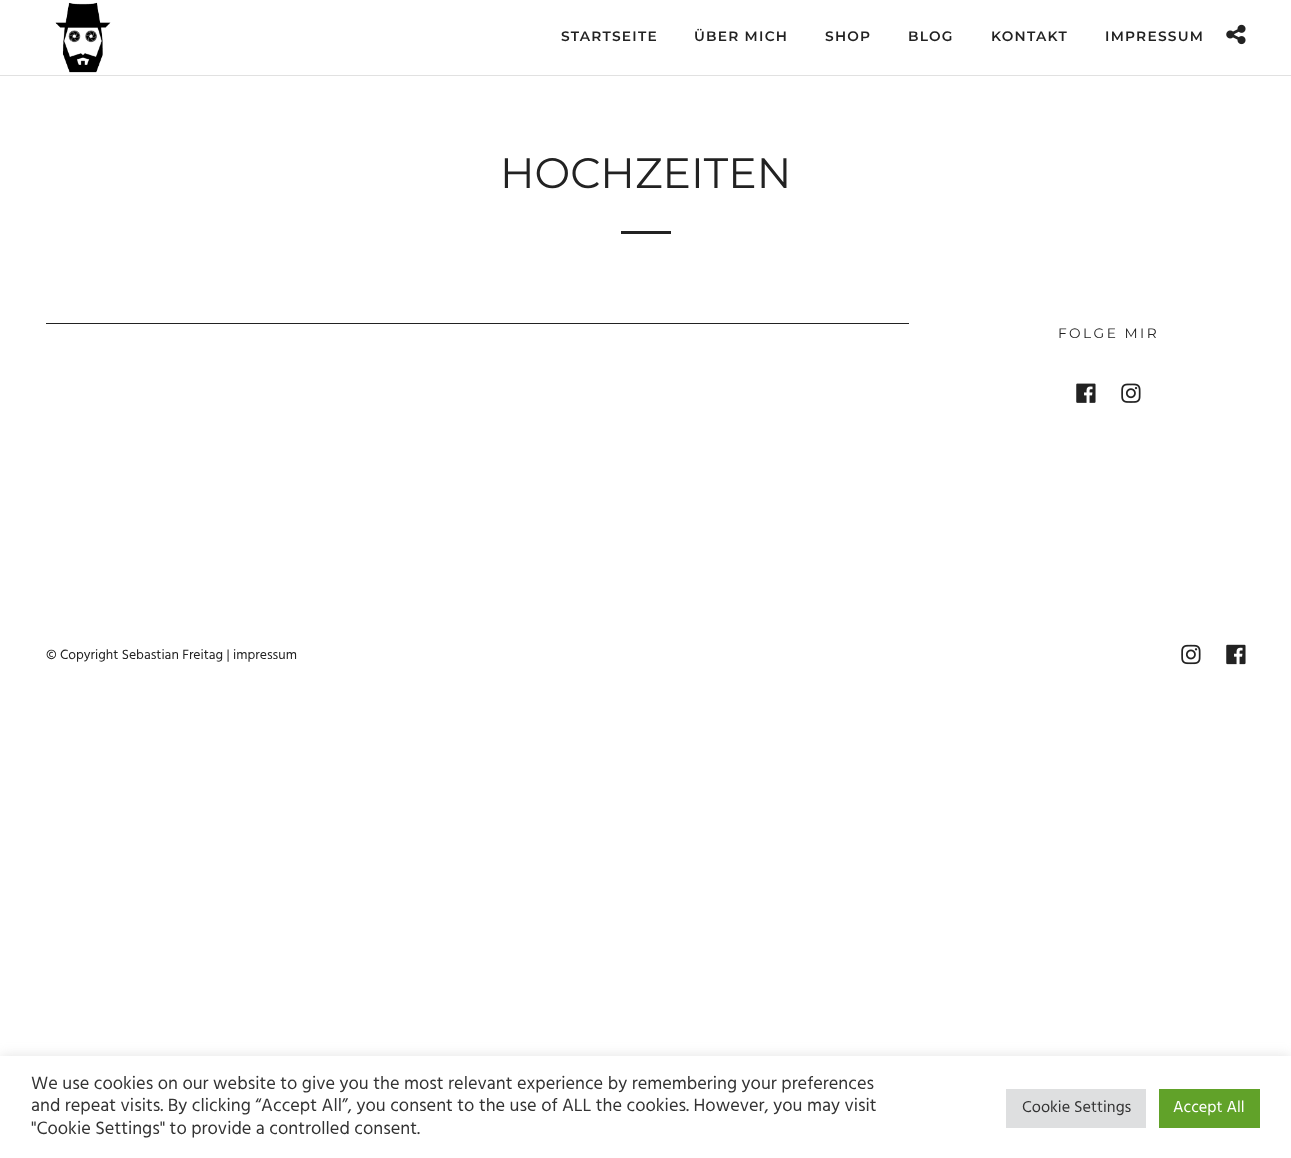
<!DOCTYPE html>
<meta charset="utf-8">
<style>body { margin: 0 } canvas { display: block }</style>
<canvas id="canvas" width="1291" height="1158"></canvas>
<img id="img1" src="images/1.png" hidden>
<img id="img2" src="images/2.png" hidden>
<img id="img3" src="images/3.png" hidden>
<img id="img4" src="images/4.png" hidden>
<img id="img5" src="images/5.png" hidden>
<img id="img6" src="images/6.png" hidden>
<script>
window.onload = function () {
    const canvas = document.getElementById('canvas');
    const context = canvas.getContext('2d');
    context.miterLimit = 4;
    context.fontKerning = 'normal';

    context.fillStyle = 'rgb(255, 255, 255)';
    context.fillRect(0, 0, 1291, 1158);
    context.fillStyle = 'rgb(225, 225, 225)';
    context.fillRect(0, 75, 1291, 1);
    context.drawImage(document.getElementById('img1'), 55, 2, 56, 71);
    context.drawImage(document.getElementById('img2'), 1226, 24, 20, 21);
    context.fillStyle = 'rgb(34, 34, 34)';
    context.fillRect(621, 231, 50, 3);
    context.fillRect(46, 323, 863, 1);
    context.drawImage(document.getElementById('img3'), 1076, 383, 20, 20);
    context.drawImage(document.getElementById('img4'), 1121, 383, 20, 20);
    context.drawImage(document.getElementById('img5'), 1181, 644, 20, 21);
    context.drawImage(document.getElementById('img6'), 1226, 644, 20, 21);
    context.fillStyle = 'rgba(172, 171, 171, 0.3)';
    context.filter = 'blur(6px)';
    context.beginPath();
    context.rect(0, 1055, 1291, 103);
    context.fill();
    context.filter = 'none';
    context.fillStyle = 'rgb(255, 255, 255)';
    context.fillRect(0, 1056, 1291, 102);
    context.fillStyle = 'rgb(222, 223, 224)';
    context.fillRect(1006, 1089, 140, 39);
    context.fillStyle = 'rgb(97, 162, 41)';
    context.fillRect(1159, 1089, 101, 39);
    context.letterSpacing = '1.25px';
    context.font = '600 13.75px Montserrat';
    context.fillStyle = 'rgb(34, 34, 34)';
    context.fillText('STARTSEITE', 561, 41);
    context.fillText('ÜBER MICH', 694, 41);
    context.fillText('SHOP', 825, 41);
    context.fillText('BLOG', 908, 41);
    context.fillText('KONTAKT', 991, 41);
    context.fillText('IMPRESSUM', 1105, 41);
    context.letterSpacing = '0px';
    context.font = '100 42.5px Montserrat';
    context.fillText('HOCHZEITEN', 500, 188);
    context.letterSpacing = '2.5px';
    context.font = '100 13.75px Montserrat';
    context.fillText('FOLGE MIR', 1058, 338);
    context.letterSpacing = '0px';
    context.font = '13.75px Hind';
    context.fillText('© Copyright Sebastian Freitag | impressum', 46, 659);
    context.font = '18.35px Hind';
    context.fillStyle = 'rgb(51, 51, 51)';
    context.fillText('We use cookies on our website to give you the most relevant experience by remembering your preferences', 31, 1089);
    context.fillText('and repeat visits. By clicking “Accept All”, you consent to the use of ALL the cookies. However, you may visit', 31, 1111);
    context.fillText('"Cookie Settings" to provide a controlled consent.', 31, 1134);
    context.font = '16.25px Hind';
    context.fillText('Cookie Settings', 1022, 1112);
    context.fillStyle = 'rgb(255, 255, 255)';
    context.fillText('Accept All', 1173, 1112);
};
</script>
